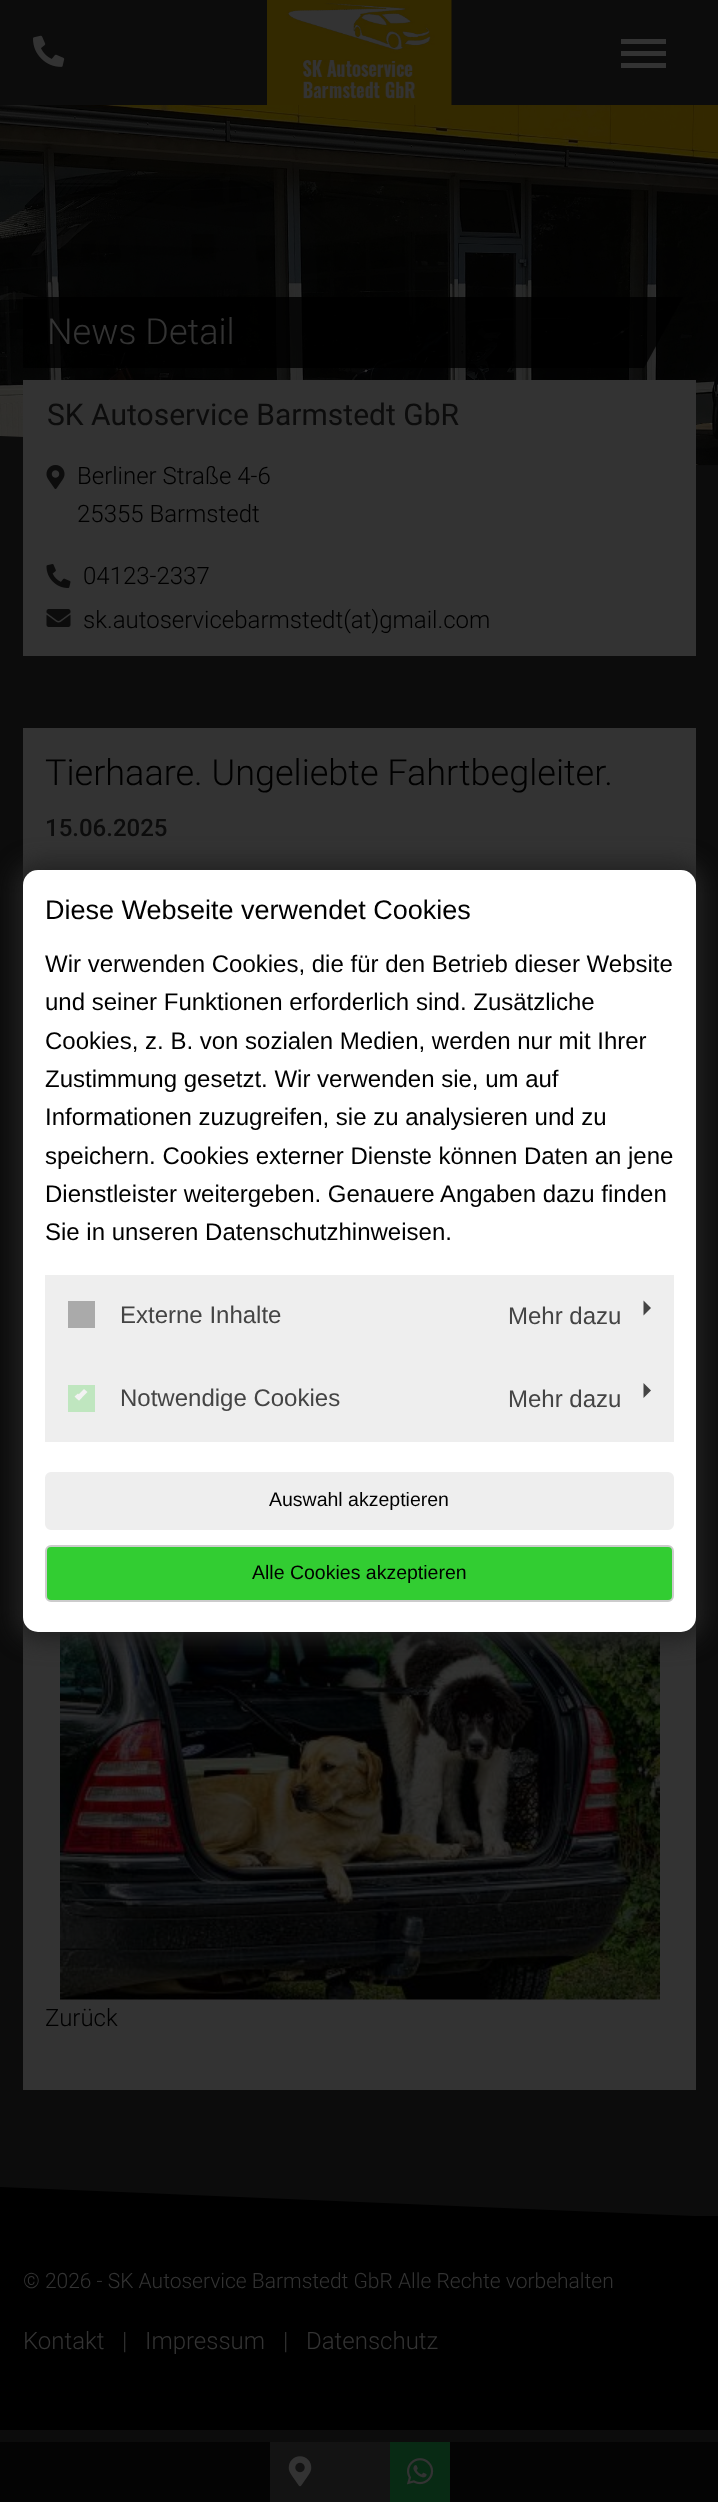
<!DOCTYPE html>
<meta charset="utf-8">
<style>body { margin: 0 } canvas { display: block }</style>
<canvas id="canvas" width="718" height="2502"></canvas>
<img id="img1" src="images/1.png" hidden>
<img id="img2" src="images/2.png" hidden>
<img id="img3" src="images/3.png" hidden>
<img id="img4" src="images/4.png" hidden>
<img id="img5" src="images/5.png" hidden>
<img id="img6" src="images/6.png" hidden>
<img id="img7" src="images/7.png" hidden>
<img id="img8" src="images/8.png" hidden>
<img id="img9" src="images/9.png" hidden>
<script>
window.onload = function () {
    const canvas = document.getElementById('canvas');
    const context = canvas.getContext('2d');
    context.miterLimit = 4;
    context.fontKerning = 'normal';

    context.fillStyle = 'rgb(12, 12, 12)';
    context.fillRect(0, 0, 718, 2502);
    context.drawImage(document.getElementById('img1'), 33, 35, 32, 32);
    context.drawImage(document.getElementById('img2'), 267, 0, 185, 105);
    context.fillStyle = 'rgb(51, 51, 51)';
    context.fillRect(621, 39, 45, 5);
    context.fillRect(621, 51, 45, 5);
    context.fillRect(621, 63, 45, 5);
    context.drawImage(document.getElementById('img3'), 0, 105, 718, 360);
    context.fillStyle = 'rgb(12, 12, 12)';
    context.beginPath();
    context.moveTo(0, 466);
    context.lineTo(0, 436);
    context.lineTo(718, 466);
    context.closePath();
    context.fill();
    context.save();
    context.beginPath();
    context.rect(23, 297, 660, 71);
    context.clip();
    context.fillStyle = 'rgba(0, 0, 0, 0.8)';
    context.beginPath();
    context.moveTo(22, 297);
    context.lineTo(683, 297);
    context.lineTo(644, 368);
    context.lineTo(22, 368);
    context.closePath();
    context.fill();
    context.restore();
    context.fillStyle = 'rgb(51, 51, 51)';
    context.fillRect(23, 380, 673, 276);
    context.drawImage(document.getElementById('img4'), 46, 465, 19, 24);
    context.drawImage(document.getElementById('img5'), 46, 564, 25, 24);
    context.drawImage(document.getElementById('img6'), 46, 609, 25, 18);
    context.fillRect(23, 728, 673, 1362);
    context.drawImage(document.getElementById('img7'), 60, 1632, 600, 368);
    context.fillStyle = 'rgb(4, 4, 4)';
    context.fillRect(0, 2442, 718, 60);
    context.fillStyle = 'rgb(19, 19, 19)';
    context.fillRect(270, 2442, 120, 60);
    context.drawImage(document.getElementById('img8'), 288, 2456, 24, 31);
    context.fillStyle = 'rgb(8, 42, 20)';
    context.fillRect(390, 2442, 60, 60);
    context.drawImage(document.getElementById('img9'), 406, 2458, 28, 27);
    context.fillStyle = 'rgb(34, 34, 34)';
    context.filter = 'blur(11px)';
    context.beginPath();
    context.roundRect(15, 863, 689, 777, 23);
    context.fill();
    context.filter = 'none';
    context.fillStyle = 'rgb(255, 255, 255)';
    context.beginPath();
    context.roundRect(23, 870, 673, 762, 15);
    context.fill();
    context.fillStyle = 'rgb(238, 238, 238)';
    context.fillRect(45, 1275, 629, 167);
    context.fillStyle = 'rgb(170, 170, 170)';
    context.fillRect(68, 1301, 27, 27);
    context.fillStyle = 'rgb(68, 68, 68)';
    context.beginPath();
    context.moveTo(643.5, 1315.5);
    context.lineTo(643.5, 1300.5);
    context.lineTo(651, 1308);
    context.closePath();
    context.fill();
    context.fillStyle = 'rgb(191, 230, 191)';
    context.fillRect(68, 1385, 27, 27);
    context.fillStyle = 'rgb(242, 242, 242)';
    context.beginPath();
    context.moveTo(84, 1389);
    context.lineTo(87.5, 1392);
    context.lineTo(79, 1400.5);
    context.lineTo(75.5, 1397.5);
    context.closePath();
    context.fill();
    context.beginPath();
    context.moveTo(78, 1393.5);
    context.lineTo(82, 1397.5);
    context.lineTo(79, 1400.5);
    context.lineTo(74.5, 1396.5);
    context.closePath();
    context.fill();
    context.fillStyle = 'rgb(68, 68, 68)';
    context.beginPath();
    context.moveTo(643.5, 1398);
    context.lineTo(643.5, 1383);
    context.lineTo(651, 1390.5);
    context.closePath();
    context.fill();
    context.fillStyle = 'rgb(238, 238, 238)';
    context.beginPath();
    context.roundRect(46, 1473, 627, 56, 5);
    context.fill();
    context.strokeStyle = 'rgb(238, 238, 238)';
    context.lineWidth = 2;
    context.stroke();
    context.fillStyle = 'rgb(50, 205, 50)';
    context.beginPath();
    context.roundRect(46, 1546, 627, 55, 5);
    context.fill();
    context.strokeStyle = 'rgb(204, 204, 204)';
    context.stroke();
    context.fillStyle = 'rgb(0, 0, 0)';
    context.fillRect(0, 2216, 718, 214);
    context.beginPath();
    context.moveTo(0, 2217);
    context.lineTo(0, 2187);
    context.lineTo(718, 2217);
    context.closePath();
    context.fill();
    context.font = '300 36px Roboto';
    context.fillStyle = 'rgb(51, 51, 51)';
    context.fillText('News Detail', 47, 344);
    context.font = '30px Roboto';
    context.fillStyle = 'rgb(12, 12, 12)';
    context.fillText('SK Autoservice Barmstedt GbR', 47, 425);
    context.font = '300 24px Roboto';
    context.fillStyle = 'rgb(0, 0, 0)';
    context.fillText('Berliner Straße 4-6', 77, 484);
    context.fillText('25355 Barmstedt', 77, 522);
    context.fillText('04123-2337', 83, 584);
    context.fillText('sk.autoservicebarmstedt(at)gmail.com', 83, 628);
    context.font = '300 36px Roboto';
    context.fillText('Tierhaare. Ungeliebte Fahrtbegleiter.', 45, 785);
    context.font = '500 24px Roboto';
    context.fillStyle = 'rgb(12, 12, 12)';
    context.fillText('15.06.2025', 45, 836);
    context.font = '300 24px Roboto';
    context.fillStyle = 'rgb(0, 0, 0)';
    context.fillText('Zurück', 45, 2026);
    context.font = '27px Liberation Sans';
    context.fillText('Diese Webseite verwendet Cookies', 45, 919);
    context.font = '24px Liberation Sans';
    context.fillText('Wir verwenden Cookies, die für den Betrieb dieser Website', 45, 972);
    context.fillText('und seiner Funktionen erforderlich sind. Zusätzliche', 45, 1010);
    context.fillText('Cookies, z. B. von sozialen Medien, werden nur mit Ihrer', 45, 1049);
    context.fillText('Zustimmung gesetzt. Wir verwenden sie, um auf', 45, 1087);
    context.fillText('Informationen zuzugreifen, sie zu analysieren und zu', 45, 1125);
    context.fillText('speichern. Cookies externer Dienste können Daten an jene', 45, 1164);
    context.fillText('Dienstleister weitergeben. Genauere Angaben dazu finden', 45, 1202);
    context.fillText('Sie in unseren Datenschutzhinweisen.', 45, 1240);
    context.fillStyle = 'rgb(68, 68, 68)';
    context.fillText('Externe Inhalte', 120, 1323);
    context.fillText('Mehr dazu', 508, 1324);
    context.fillText('Notwendige Cookies', 120, 1406);
    context.fillText('Mehr dazu', 508, 1407);
    context.font = '19.5px Liberation Sans';
    context.fillStyle = 'rgb(0, 0, 0)';
    context.fillText('Auswahl akzeptieren', 269, 1506);
    context.fillText('Alle Cookies akzeptieren', 252, 1579);
    context.font = '300 21px Roboto';
    context.fillStyle = 'rgb(51, 51, 51)';
    context.fillText('© 2026 - SK Autoservice Barmstedt GbR Alle Rechte vorbehalten', 23, 2288);
    context.font = '300 24px Roboto';
    context.fillText('Kontakt', 23, 2349);
    context.fillText('|', 122, 2349);
    context.fillText('Impressum', 145, 2349);
    context.fillText('|', 283, 2349);
    context.fillText('Datenschutz', 306, 2349);
};
</script>
